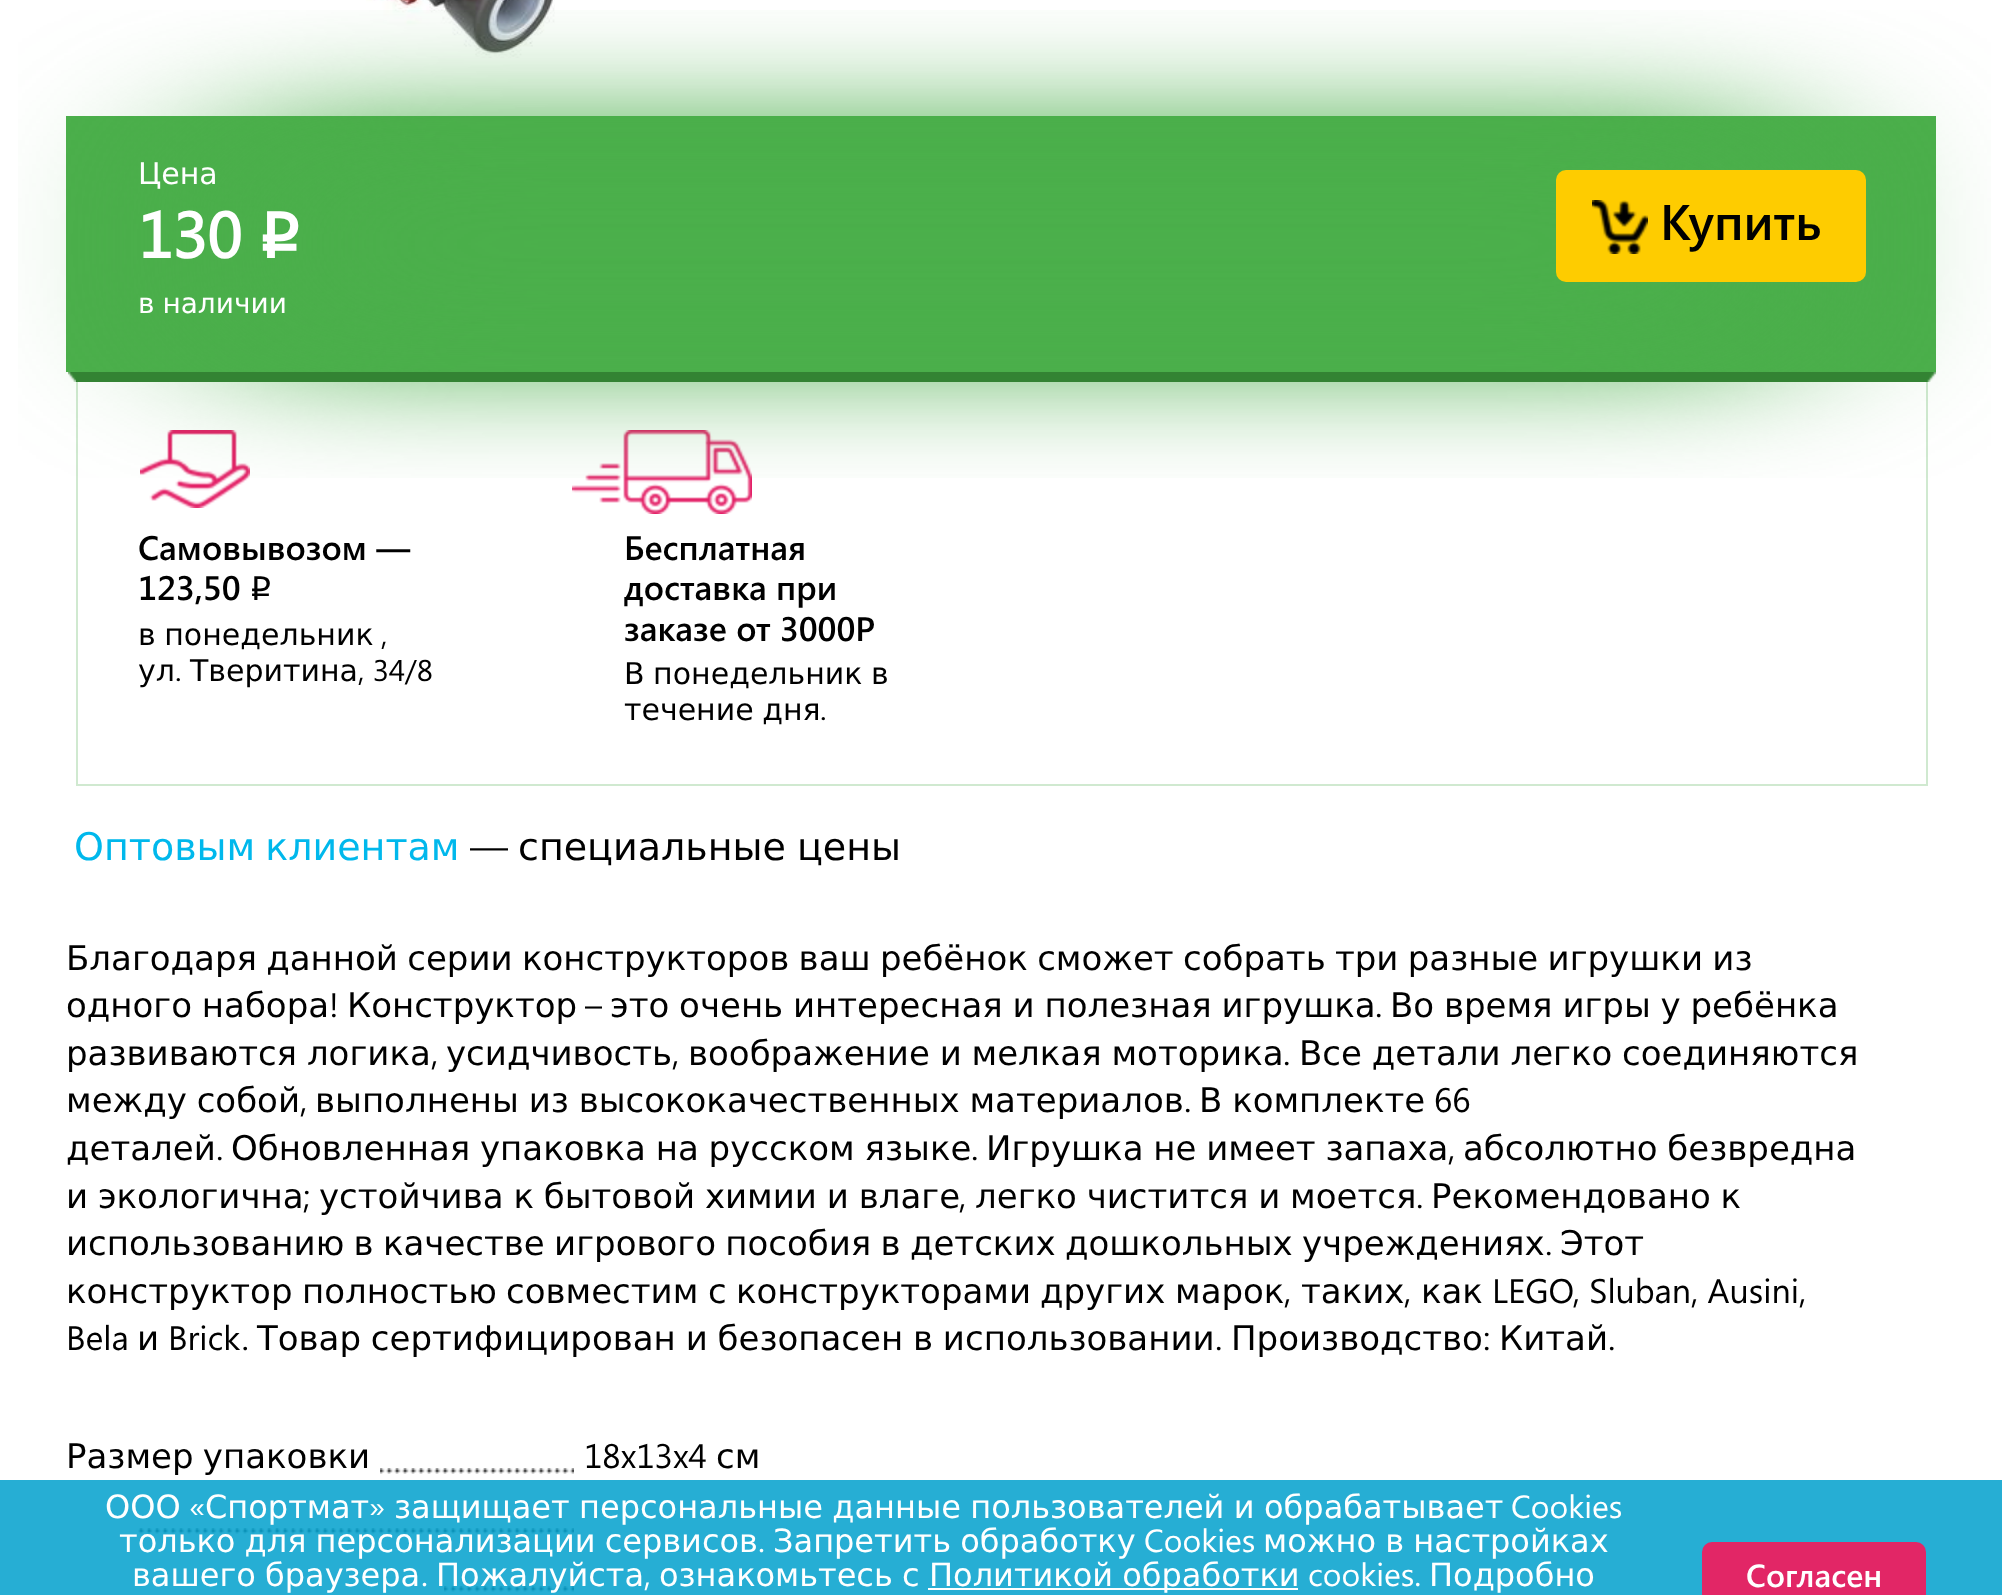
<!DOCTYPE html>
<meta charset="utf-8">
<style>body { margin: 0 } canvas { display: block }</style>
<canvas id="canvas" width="2002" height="1595"></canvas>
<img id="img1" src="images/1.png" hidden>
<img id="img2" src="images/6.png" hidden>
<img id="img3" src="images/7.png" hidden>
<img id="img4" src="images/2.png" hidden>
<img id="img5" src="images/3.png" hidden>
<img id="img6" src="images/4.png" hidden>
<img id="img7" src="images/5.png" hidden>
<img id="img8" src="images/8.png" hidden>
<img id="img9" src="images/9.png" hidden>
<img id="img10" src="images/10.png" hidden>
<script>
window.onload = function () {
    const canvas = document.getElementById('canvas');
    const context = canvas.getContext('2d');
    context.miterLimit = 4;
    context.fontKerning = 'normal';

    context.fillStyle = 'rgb(255, 255, 255)';
    context.fillRect(0, 0, 2002, 1595);
    context.drawImage(document.getElementById('img1'), 366, 0, 189, 58);
    context.fillStyle = 'rgb(75, 175, 75)';
    context.fillRect(66, 116, 1870, 256);
    context.strokeStyle = 'rgb(208, 233, 208)';
    context.lineWidth = 2;
    context.strokeRect(77, 373, 1850, 412);
    context.drawImage(document.getElementById('img2'), 140, 430, 110, 78);
    context.drawImage(document.getElementById('img3'), 572, 430, 180, 84);
    context.drawImage(document.getElementById('img4'), 18, 10, 1973, 468);
    context.fillStyle = 'rgb(254, 204, 0)';
    context.beginPath();
    context.roundRect(1556, 170, 310, 112, 10);
    context.fill();
    context.drawImage(document.getElementById('img5'), 1592, 200, 56, 54);
    context.fillStyle = 'rgb(51, 131, 51)';
    context.fillRect(76, 372, 1850, 10);
    context.drawImage(document.getElementById('img6'), 68, 372, 8, 10);
    context.drawImage(document.getElementById('img7'), 1926, 372, 10, 10);
    context.drawImage(document.getElementById('img8'), 380, 1468, 194, 6);
    context.drawImage(document.getElementById('img9'), 138, 1528, 436, 6);
    context.drawImage(document.getElementById('img10'), 444, 1586, 130, 6);
    context.fillStyle = 'rgba(0, 160, 205, 0.85)';
    context.fillRect(0, 1480, 2002, 115);
    context.fillStyle = 'rgb(255, 255, 255)';
    context.fillRect(928, 1588, 370, 2);
    context.fillStyle = 'rgb(226, 38, 102)';
    context.beginPath();
    context.roundRect(1702, 1542, 224, 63, 10);
    context.fill();
    context.font = '30px DejaVu Sans';
    context.fillStyle = 'rgb(255, 255, 255)';
    context.fillText('Цена', 138, 184);
    context.font = 'bold 64px Segoe UI';
    context.fillText('130', 138, 258);
    context.font = 'bold 64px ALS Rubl';
    context.fillText('p', 259, 258);
    context.font = '600 50px Segoe UI';
    context.fillStyle = 'rgb(0, 0, 0)';
    context.fillText('Купить', 1660, 240);
    context.wordSpacing = '-1px';
    context.font = '28px DejaVu Sans';
    context.fillStyle = 'rgb(255, 255, 255)';
    context.fillText('в наличии', 138, 313);
    context.wordSpacing = '0px';
    context.font = '600 34px Segoe UI';
    context.fillStyle = 'rgb(0, 0, 0)';
    context.fillText('Самовывозом —', 138, 560);
    context.fillText('123,50', 138, 600);
    context.font = '34px ALS Rubl';
    context.fillText('p', 250, 600);
    context.wordSpacing = '-1px';
    context.font = '30px DejaVu Sans';
    context.fillText('в понедельник', 138, 645);
    context.wordSpacing = '0px';
    context.font = '30px Segoe UI';
    context.fillText(',', 381, 645);
    context.font = '30px DejaVu Sans';
    context.fillText('ул', 138, 681);
    context.font = '30px Segoe UI';
    context.fillText('.', 175, 681);
    context.font = '30px DejaVu Sans';
    context.fillText('Тверитина', 190, 681);
    context.font = '30px Segoe UI';
    context.fillText(', 34/8', 358, 681);
    context.font = '600 34px Segoe UI';
    context.fillText('Бесплатная', 624, 560);
    context.fillText('доставка при', 624, 600);
    context.fillText('заказе от 3000Р', 624, 641);
    context.wordSpacing = '-1px';
    context.font = '30px DejaVu Sans';
    context.fillText('В понедельник в', 624, 684);
    context.fillText('течение дня', 624, 720);
    context.wordSpacing = '0px';
    context.font = '30px Segoe UI';
    context.fillText('.', 820, 720);
    context.wordSpacing = '-2px';
    context.font = '38px DejaVu Sans';
    context.fillStyle = 'rgb(0, 184, 236)';
    context.fillText('Оптовым клиентам', 74, 860);
    context.wordSpacing = '0px';
    context.font = '38px Segoe UI';
    context.fillStyle = 'rgb(0, 0, 0)';
    context.fillText('—', 470, 860);
    context.wordSpacing = '-1px';
    context.font = '38px DejaVu Sans';
    context.fillText('специальные цены', 518, 860);
    context.wordSpacing = '-1.5px';
    context.font = '34px DejaVu Sans';
    context.fillText('Благодаря данной серии конструкторов ваш ребёнок сможет собрать три разные игрушки из', 66, 970);
    context.wordSpacing = '-1px';
    context.fillText('одного набора', 66, 1017);
    context.wordSpacing = '0px';
    context.font = '34px Segoe UI';
    context.fillText('!', 329, 1017);
    context.font = '34px DejaVu Sans';
    context.fillText('Конструктор', 347, 1017);
    context.font = '34px Segoe UI';
    context.fillText('–', 585, 1017);
    context.wordSpacing = '-1px';
    context.font = '34px DejaVu Sans';
    context.fillText('это очень интересная и полезная игрушка', 610, 1017);
    context.fillText('Во время игры у ребёнка', 1390, 1017);
    context.wordSpacing = '0px';
    context.font = '34px Segoe UI';
    context.fillText('.', 1375, 1017);
    context.wordSpacing = '-1px';
    context.font = '34px DejaVu Sans';
    context.fillText('развиваются логика', 66, 1065);
    context.wordSpacing = '0px';
    context.font = '34px Segoe UI';
    context.fillText(',', 431, 1065);
    context.font = '34px DejaVu Sans';
    context.fillText('усидчивость', 446, 1065);
    context.font = '34px Segoe UI';
    context.fillText(',', 672, 1065);
    context.wordSpacing = '-1px';
    context.font = '34px DejaVu Sans';
    context.fillText('воображение и мелкая моторика', 688, 1065);
    context.wordSpacing = '0px';
    context.font = '34px Segoe UI';
    context.fillText('.', 1283, 1065);
    context.wordSpacing = '-1px';
    context.font = '34px DejaVu Sans';
    context.fillText('Все детали легко соединяются', 1299, 1065);
    context.fillText('между собой', 66, 1112);
    context.wordSpacing = '0px';
    context.font = '34px Segoe UI';
    context.fillText(',', 300, 1112);
    context.wordSpacing = '-1px';
    context.font = '34px DejaVu Sans';
    context.fillText('выполнены из высококачественных материалов', 315, 1112);
    context.wordSpacing = '0px';
    context.font = '34px Segoe UI';
    context.fillText('.', 1184, 1112);
    context.wordSpacing = '-1px';
    context.font = '34px DejaVu Sans';
    context.fillText('В комплекте', 1199, 1112);
    context.wordSpacing = '0px';
    context.font = '34px Segoe UI';
    context.fillText('66', 1434, 1112);
    context.font = '34px DejaVu Sans';
    context.fillText('деталей', 66, 1160);
    context.font = '34px Segoe UI';
    context.fillText('.', 216, 1160);
    context.wordSpacing = '-1px';
    context.font = '34px DejaVu Sans';
    context.fillText('Обновленная упаковка на русском языке', 231, 1160);
    context.wordSpacing = '0px';
    context.font = '34px Segoe UI';
    context.fillText('.', 971, 1160);
    context.wordSpacing = '-1px';
    context.font = '34px DejaVu Sans';
    context.fillText('Игрушка не имеет запаха', 986, 1160);
    context.wordSpacing = '0px';
    context.font = '34px Segoe UI';
    context.fillText(',', 1448, 1160);
    context.wordSpacing = '-1px';
    context.font = '34px DejaVu Sans';
    context.fillText('абсолютно безвредна', 1463, 1160);
    context.fillText('и экологична', 66, 1208);
    context.wordSpacing = '0px';
    context.font = '34px Segoe UI';
    context.fillText(';', 303, 1208);
    context.wordSpacing = '-1px';
    context.font = '34px DejaVu Sans';
    context.fillText('устойчива к бытовой химии и влаге', 319, 1208);
    context.wordSpacing = '0px';
    context.font = '34px Segoe UI';
    context.fillText(',', 959, 1208);
    context.wordSpacing = '-1px';
    context.font = '34px DejaVu Sans';
    context.fillText('легко чистится и моется', 975, 1208);
    context.wordSpacing = '0px';
    context.font = '34px Segoe UI';
    context.fillText('.', 1416, 1208);
    context.wordSpacing = '-1px';
    context.font = '34px DejaVu Sans';
    context.fillText('Рекомендовано к', 1431, 1208);
    context.wordSpacing = '-1.5px';
    context.fillText('использованию в качестве игрового пособия в детских дошкольных учреждениях', 66, 1255);
    context.wordSpacing = '0px';
    context.font = '34px Segoe UI';
    context.fillText('.', 1545, 1255);
    context.font = '34px DejaVu Sans';
    context.fillText('Этот', 1560, 1255);
    context.fillText('конструктор', 66, 1303);
    context.fillText('полностью', 302, 1303);
    context.fillText('совместим', 506, 1303);
    context.fillText('с', 708, 1303);
    context.fillText('конструкторами', 736, 1303);
    context.fillText('других', 1040, 1303);
    context.fillText('марок', 1175, 1303);
    context.font = '34px Segoe UI';
    context.fillText(',', 1284, 1303);
    context.font = '34px DejaVu Sans';
    context.fillText('таких', 1301, 1303);
    context.font = '34px Segoe UI';
    context.fillText(',', 1404, 1303);
    context.font = '34px DejaVu Sans';
    context.fillText('как', 1421, 1303);
    context.font = '34px Segoe UI';
    context.fillText('LEGO, Sluban, Ausini,', 1492, 1303);
    context.fillText('Bela', 66, 1350);
    context.font = '34px DejaVu Sans';
    context.fillText('и', 137, 1350);
    context.font = '34px Segoe UI';
    context.fillText('Brick.', 168, 1350);
    context.wordSpacing = '-1px';
    context.font = '34px DejaVu Sans';
    context.fillText('Товар сертифицирован и безопасен в использовании', 257, 1350);
    context.wordSpacing = '0px';
    context.font = '34px Segoe UI';
    context.fillText('.', 1215, 1350);
    context.font = '34px DejaVu Sans';
    context.fillText('Производство', 1231, 1350);
    context.font = '34px Segoe UI';
    context.fillText(':', 1483, 1350);
    context.font = '34px DejaVu Sans';
    context.fillText('Китай', 1499, 1350);
    context.font = '34px Segoe UI';
    context.fillText('.', 1608, 1350);
    context.wordSpacing = '-1.5px';
    context.font = '34px DejaVu Sans';
    context.fillText('Размер упаковки', 66, 1468);
    context.wordSpacing = '0px';
    context.font = '34px Segoe UI';
    context.fillText('18x13x4', 584, 1468);
    context.font = '34px DejaVu Sans';
    context.fillText('см', 716, 1468);
    context.font = '32px DejaVu Sans';
    context.fillStyle = 'rgb(255, 255, 255)';
    context.fillText('ООО', 105, 1518);
    context.font = '32px Segoe UI';
    context.fillText('«', 189, 1518);
    context.font = '32px DejaVu Sans';
    context.fillText('Спортмат', 205, 1518);
    context.font = '32px Segoe UI';
    context.fillText('»', 369, 1518);
    context.wordSpacing = '-0.75px';
    context.font = '32px DejaVu Sans';
    context.fillText('защищает персональные данные пользователей и обрабатывает', 394, 1518);
    context.wordSpacing = '0px';
    context.font = '32px Segoe UI';
    context.fillText('Cookies', 1511, 1518);
    context.wordSpacing = '-1px';
    context.font = '32px DejaVu Sans';
    context.fillText('только для персонализации сервисов', 119, 1552);
    context.wordSpacing = '0px';
    context.font = '32px Segoe UI';
    context.fillText('.', 758, 1552);
    context.wordSpacing = '-1px';
    context.font = '32px DejaVu Sans';
    context.fillText('Запретить обработку', 773, 1552);
    context.wordSpacing = '0px';
    context.font = '32px Segoe UI';
    context.fillText('Cookies', 1144, 1552);
    context.wordSpacing = '-1px';
    context.font = '32px DejaVu Sans';
    context.fillText('можно в настройках', 1263, 1552);
    context.fillText('вашего браузера', 132, 1586);
    context.wordSpacing = '0px';
    context.font = '32px Segoe UI';
    context.fillText('.', 421, 1586);
    context.font = '32px DejaVu Sans';
    context.fillText('Пожалуйста', 436, 1586);
    context.font = '32px Segoe UI';
    context.fillText(',', 644, 1586);
    context.wordSpacing = '-1px';
    context.font = '32px DejaVu Sans';
    context.fillText('ознакомьтесь с', 659, 1586);
    context.fillText('Политикой обработки', 929, 1586);
    context.wordSpacing = '0px';
    context.font = '32px Segoe UI';
    context.fillText('cookies.', 1308, 1586);
    context.font = '32px DejaVu Sans';
    context.fillText('Подробно', 1429, 1586);
    context.font = '600 32px Segoe UI';
    context.fillText('Согласен', 1746, 1587);
};
</script>
